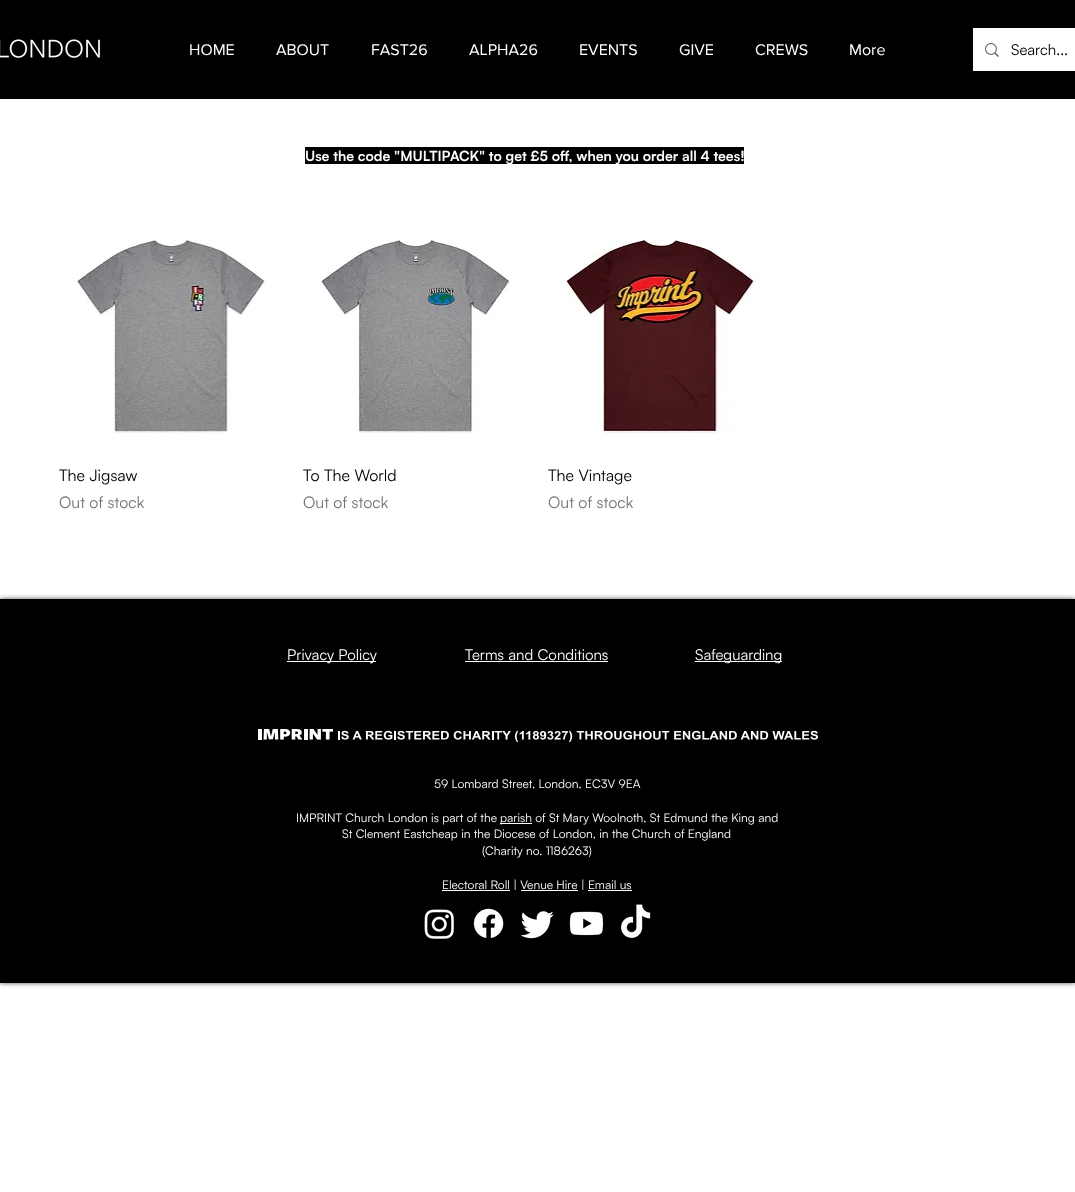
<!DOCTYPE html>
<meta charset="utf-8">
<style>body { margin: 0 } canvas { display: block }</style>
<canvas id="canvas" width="1075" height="1192"></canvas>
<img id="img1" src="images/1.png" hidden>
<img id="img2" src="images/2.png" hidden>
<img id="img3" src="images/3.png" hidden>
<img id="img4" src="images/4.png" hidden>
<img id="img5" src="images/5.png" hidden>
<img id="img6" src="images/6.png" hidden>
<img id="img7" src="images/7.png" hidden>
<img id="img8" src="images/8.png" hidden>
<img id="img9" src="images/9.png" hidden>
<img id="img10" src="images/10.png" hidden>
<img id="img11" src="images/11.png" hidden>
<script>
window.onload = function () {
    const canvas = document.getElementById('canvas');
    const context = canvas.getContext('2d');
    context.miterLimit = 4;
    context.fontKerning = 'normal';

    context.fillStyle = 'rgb(255, 255, 255)';
    context.fillRect(0, 0, 1075, 1192);
    context.fillStyle = 'rgb(0, 0, 0)';
    context.fillRect(0, 0, 1075, 99);
    context.drawImage(document.getElementById('img1'), 0, 39, 101, 19);
    context.fillStyle = 'rgb(255, 255, 255)';
    context.fillRect(973, 28, 102, 43);
    context.drawImage(document.getElementById('img2'), 985, 43, 14, 14);
    context.fillStyle = 'rgb(0, 0, 0)';
    context.fillRect(305, 147, 439, 17);
    context.drawImage(document.getElementById('img3'), 75, 239, 191, 196);
    context.drawImage(document.getElementById('img4'), 319, 239, 191, 195);
    context.drawImage(document.getElementById('img5'), 564, 239, 191, 196);
    context.fillStyle = 'rgba(0, 0, 0, 0.7)';
    context.filter = 'blur(2.5px)';
    context.beginPath();
    context.rect(0, 599, 1075, 384);
    context.fill();
    context.filter = 'none';
    context.fillStyle = 'rgb(0, 0, 0)';
    context.fillRect(0, 599, 1075, 384);
    context.fillStyle = 'rgb(255, 255, 255)';
    context.fillRect(287, 661, 89, 1);
    context.fillRect(465, 661, 143, 1);
    context.drawImage(document.getElementById('img6'), 258, 729, 560, 13);
    context.fillRect(500, 823, 32, 1);
    context.fillRect(442, 890, 68, 1);
    context.fillRect(521, 890, 57, 1);
    context.fillRect(588, 890, 44, 1);
    context.fillRect(695, 661, 87, 1);
    context.drawImage(document.getElementById('img7'), 424, 909, 30, 30);
    context.drawImage(document.getElementById('img8'), 473, 908, 31, 30);
    context.drawImage(document.getElementById('img9'), 520, 911, 34, 28);
    context.drawImage(document.getElementById('img10'), 569, 911, 35, 25);
    context.drawImage(document.getElementById('img11'), 620, 904, 31, 34);
    context.font = '16px "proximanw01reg"';
    context.fillText('HOME', 189, 55);
    context.fillText('ABOUT', 276, 55);
    context.fillText('FAST26', 371, 55);
    context.fillText('ALPHA26', 469, 55);
    context.fillText('EVENTS', 579, 55);
    context.fillText('GIVE', 679, 55);
    context.fillText('CREWS', 755, 55);
    context.fillText('More', 849, 55);
    context.font = '15px Satoshi';
    context.fillStyle = 'rgb(0, 0, 0)';
    context.fillText('Search...', 1011, 55);
    context.font = 'bold 14px Satoshi';
    context.fillStyle = 'rgb(255, 255, 255)';
    context.fillText('Use the code "MULTIPACK" to get £5 off, when you order all 4 tees!', 305, 161);
    context.font = '16px Satoshi';
    context.fillStyle = 'rgb(0, 0, 0)';
    context.fillText('The Jigsaw', 59, 481);
    context.fillStyle = 'rgb(117, 117, 117)';
    context.fillText('Out of stock', 59, 508);
    context.fillStyle = 'rgb(0, 0, 0)';
    context.fillText('To The World', 303, 481);
    context.fillStyle = 'rgb(117, 117, 117)';
    context.fillText('Out of stock', 303, 508);
    context.fillStyle = 'rgb(0, 0, 0)';
    context.fillText('The Vintage', 548, 481);
    context.fillStyle = 'rgb(117, 117, 117)';
    context.fillText('Out of stock', 548, 508);
    context.font = '15px Satoshi';
    context.fillStyle = 'rgb(255, 255, 255)';
    context.fillText('Privacy Policy', 287, 660);
    context.fillText('Terms and Conditions', 465, 660);
    context.font = '12px Satoshi';
    context.fillText('59 Lombard Street, London, EC3V 9EA', 434, 788);
    context.fillText('IMPRINT Church London is part of the', 296, 822);
    context.fillText('parish of St Mary Woolnoth, St Edmund the King and', 500, 822);
    context.fillText('St Clement Eastcheap in the Diocese of London, in the Church of England', 342, 838);
    context.fillText('(Charity no. 1186263)', 482, 855);
    context.fillText('Electoral Roll | Venue Hire | Email us', 442, 889);
    context.font = '15px Satoshi';
    context.fillText('Safeguarding', 695, 660);
};
</script>
